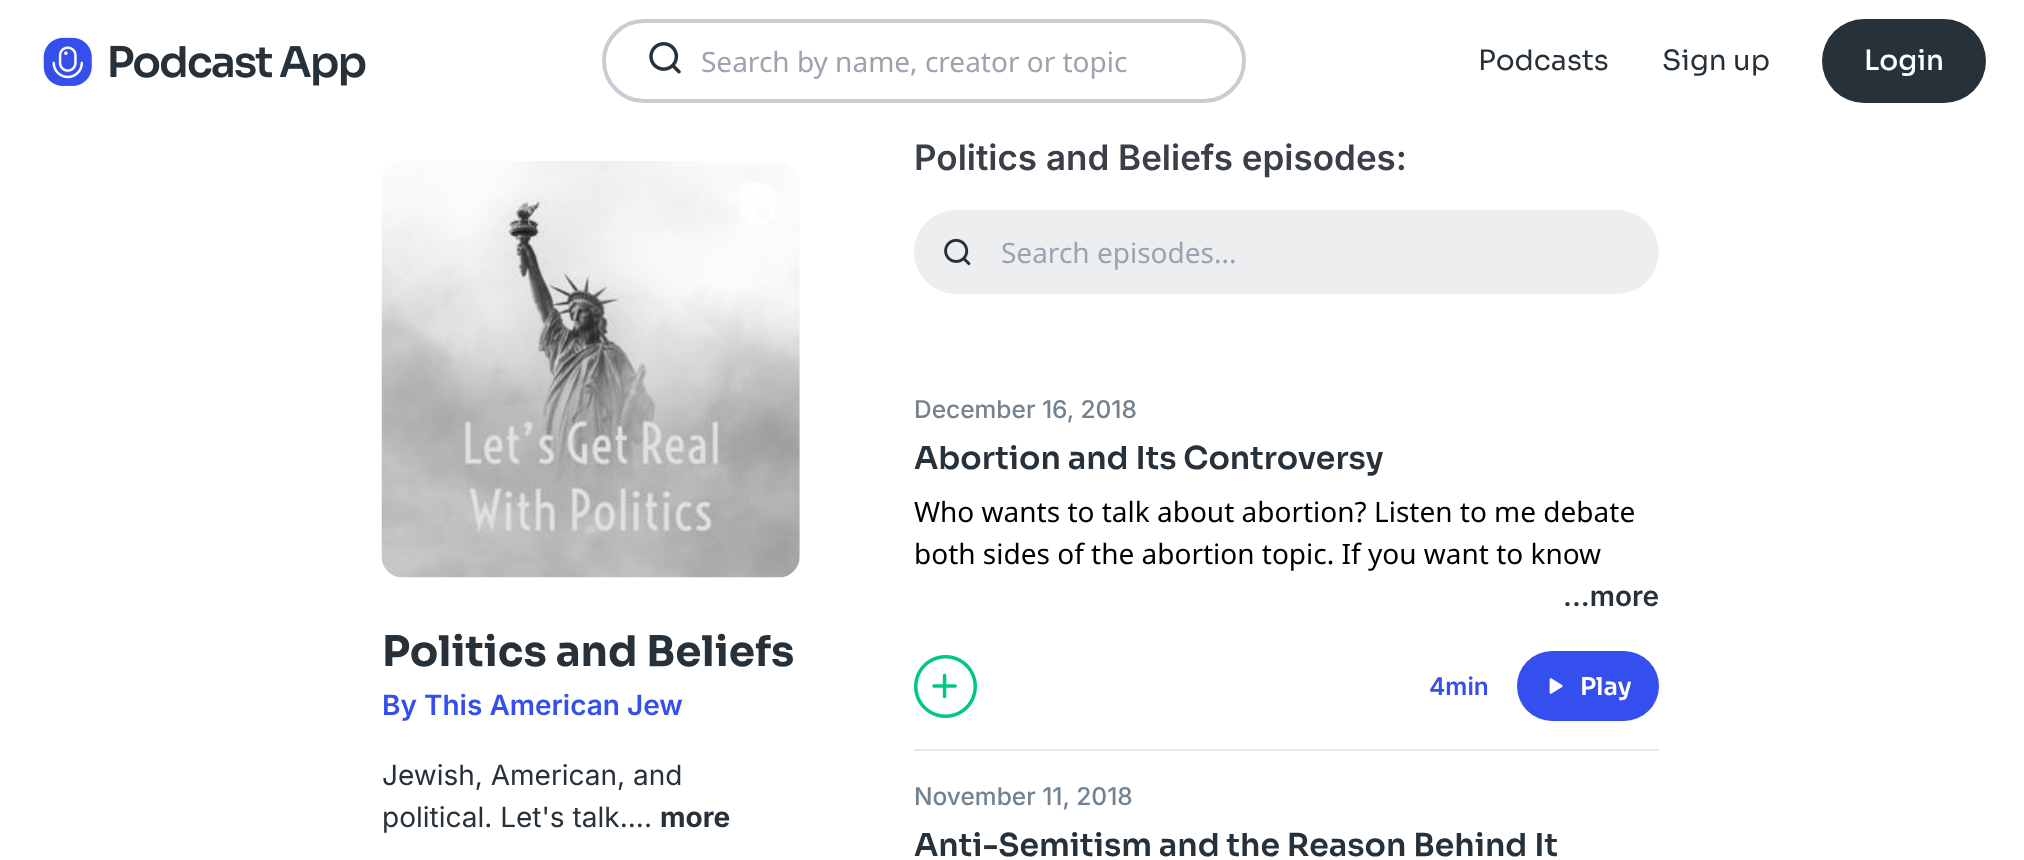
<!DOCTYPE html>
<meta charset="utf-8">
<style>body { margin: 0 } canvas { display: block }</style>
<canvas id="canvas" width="2024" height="860"></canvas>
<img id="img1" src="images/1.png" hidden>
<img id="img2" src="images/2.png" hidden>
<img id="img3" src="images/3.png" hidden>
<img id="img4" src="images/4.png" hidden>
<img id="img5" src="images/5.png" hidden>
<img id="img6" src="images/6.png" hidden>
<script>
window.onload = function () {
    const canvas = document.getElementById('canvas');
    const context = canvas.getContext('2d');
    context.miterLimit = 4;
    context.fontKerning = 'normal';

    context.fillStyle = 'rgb(255, 255, 255)';
    context.fillRect(0, 0, 2024, 860);
    context.drawImage(document.getElementById('img1'), 43, 37, 323, 49);
    context.beginPath();
    context.roundRect(604, 21, 640, 80, 40);
    context.strokeStyle = 'rgb(199, 205, 211)';
    context.lineWidth = 4;
    context.stroke();
    context.drawImage(document.getElementById('img2'), 649, 42, 32, 32);
    context.fillStyle = 'rgb(39, 49, 58)';
    context.beginPath();
    context.roundRect(1822, 19, 164, 84, 42);
    context.fill();
    context.drawImage(document.getElementById('img3'), 381, 161, 419, 417);
    context.fillStyle = 'rgb(236, 238, 240)';
    context.beginPath();
    context.roundRect(914, 210, 745, 84, 42);
    context.fill();
    context.drawImage(document.getElementById('img4'), 944, 238, 27, 28);
    context.drawImage(document.getElementById('img5'), 914, 655, 63, 63);
    context.fillStyle = 'rgb(53, 79, 238)';
    context.beginPath();
    context.roundRect(1517, 651, 142, 70, 35);
    context.fill();
    context.drawImage(document.getElementById('img6'), 1549, 678, 14, 16);
    context.fillStyle = 'rgb(229, 231, 235)';
    context.fillRect(914, 749, 745, 2);
    context.font = '28px Noto Sans';
    context.fillStyle = 'rgb(156, 163, 175)';
    context.fillText('Search by name, creator or topic', 701, 72);
    context.font = '28px Sora';
    context.fillStyle = 'rgb(39, 49, 58)';
    context.fillText('Podcasts', 1478, 70);
    context.fillText('Sign up', 1662, 70);
    context.font = '500 28px Sora';
    context.fillStyle = 'rgb(255, 255, 255)';
    context.fillText('Login', 1864, 70);
    context.font = 'bold 42px Sora';
    context.fillStyle = 'rgb(39, 49, 58)';
    context.fillText('Politics and Beliefs', 382, 666);
    context.font = '600 28px Inter';
    context.fillStyle = 'rgb(53, 79, 238)';
    context.fillText('By This American Jew', 382, 715);
    context.font = '28px Inter';
    context.fillStyle = 'rgb(39, 49, 58)';
    context.fillText('Jewish, American, and', 382, 785);
    context.fillText('political. Let\'s talk....', 382, 827);
    context.font = 'bold 28px Inter';
    context.fillText('more', 660, 827);
    context.font = '600 35px Inter';
    context.fillStyle = 'rgb(58, 63, 72)';
    context.fillText('Politics and Beliefs episodes:', 914, 170);
    context.font = '28px Noto Sans';
    context.fillStyle = 'rgb(156, 163, 175)';
    context.fillText('Search episodes...', 1001, 263);
    context.font = '500 24.5px Inter';
    context.fillStyle = 'rgb(114, 130, 143)';
    context.fillText('December 16, 2018', 914, 418);
    context.font = '600 31.5px Sora';
    context.fillStyle = 'rgb(39, 49, 58)';
    context.fillText('Abortion and Its Controversy', 914, 469);
    context.font = '28px Noto Sans';
    context.fillStyle = 'rgb(0, 0, 0)';
    context.fillText('Who wants to talk about abortion? Listen to me debate', 914, 522);
    context.fillText('both sides of the abortion topic. If you want to know', 914, 564);
    context.font = '600 28px Inter';
    context.fillStyle = 'rgb(39, 49, 58)';
    context.fillText('...more', 1563, 606);
    context.font = '600 24.5px Inter';
    context.fillStyle = 'rgb(53, 79, 238)';
    context.fillText('4min', 1429, 695);
    context.font = '600 24.5px Sora';
    context.fillStyle = 'rgb(255, 255, 255)';
    context.fillText('Play', 1580, 695);
    context.font = '500 24.5px Inter';
    context.fillStyle = 'rgb(114, 130, 143)';
    context.fillText('November 11, 2018', 914, 805);
    context.font = '600 31.5px Sora';
    context.fillStyle = 'rgb(39, 49, 58)';
    context.fillText('Anti-Semitism and the Reason Behind It', 914, 856);
};
</script>
